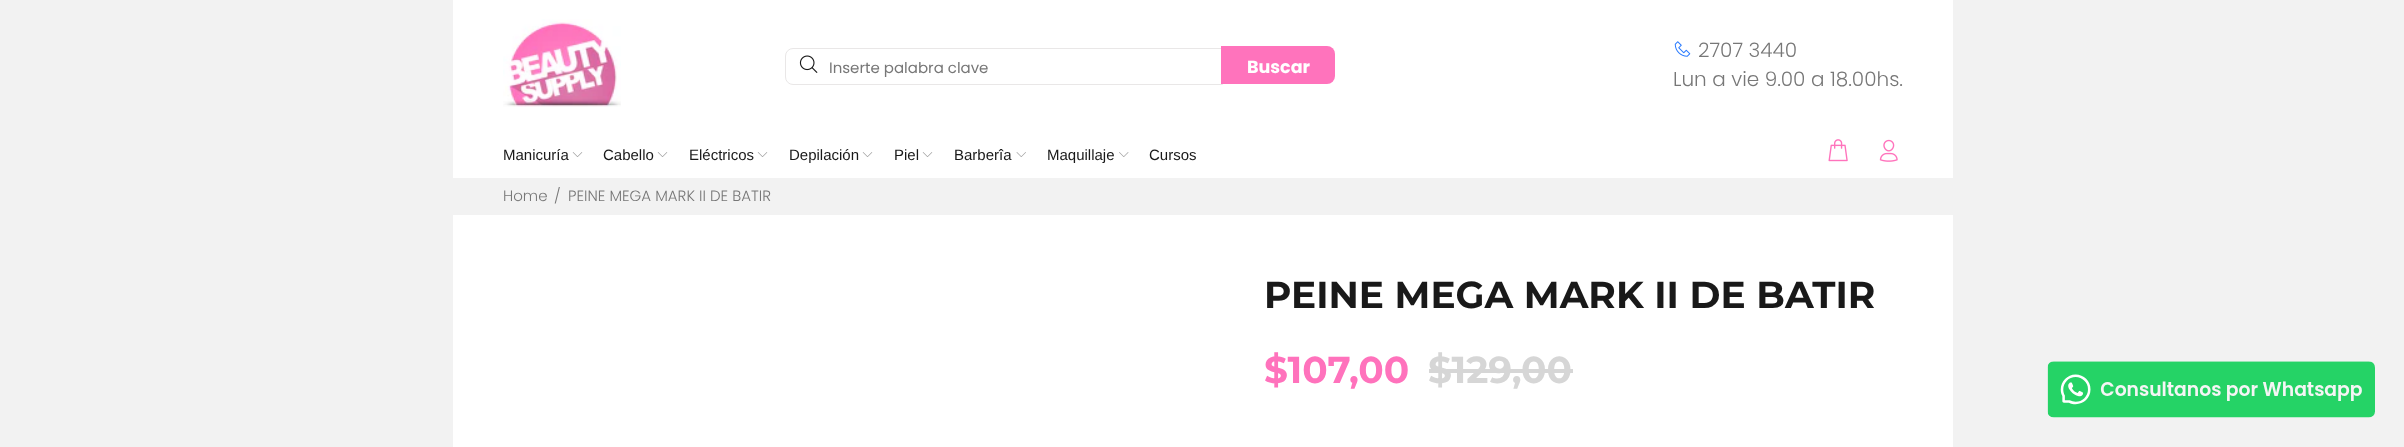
<!DOCTYPE html>
<meta charset="utf-8">
<style>body { margin: 0 } canvas { display: block }</style>
<canvas id="canvas" width="2404" height="447"></canvas>
<img id="img1" src="images/1.png" hidden>
<img id="img2" src="images/2.png" hidden>
<img id="img3" src="images/3.png" hidden>
<img id="img4" src="images/4.png" hidden>
<img id="img5" src="images/5.png" hidden>
<img id="img6" src="images/6.png" hidden>
<img id="img7" src="images/7.png" hidden>
<img id="img8" src="images/8.png" hidden>
<img id="img9" src="images/9.png" hidden>
<script>
window.onload = function () {
    const canvas = document.getElementById('canvas');
    const context = canvas.getContext('2d');
    context.miterLimit = 4;
    context.fontKerning = 'normal';

    context.fillStyle = 'rgb(242, 242, 242)';
    context.fillRect(0, 0, 2404, 447);
    context.fillStyle = 'rgb(255, 255, 255)';
    context.fillRect(453, 0, 1500, 447);
    context.drawImage(document.getElementById('img1'), 503, 19, 118, 88);
    context.beginPath();
    context.roundRect(785.5, 48.5, 437, 36, [7.5, 0, 0, 7.5]);
    context.strokeStyle = 'rgb(233, 231, 231)';
    context.stroke();
    context.drawImage(document.getElementById('img2'), 799, 55, 19, 18);
    context.fillStyle = 'rgb(255, 115, 188)';
    context.beginPath();
    context.roundRect(1221, 46, 114, 38, [0, 8, 8, 0]);
    context.fill();
    context.drawImage(document.getElementById('img3'), 1674, 41, 17, 16);
    context.drawImage(document.getElementById('img4'), 572, 152, 11, 5);
    context.drawImage(document.getElementById('img4'), 657, 152, 11, 5);
    context.drawImage(document.getElementById('img4'), 757, 152, 11, 5);
    context.drawImage(document.getElementById('img4'), 862, 152, 11, 5);
    context.drawImage(document.getElementById('img4'), 922, 152, 11, 5);
    context.drawImage(document.getElementById('img5'), 1016, 152, 10, 5);
    context.drawImage(document.getElementById('img6'), 1119, 152, 10, 5);
    context.drawImage(document.getElementById('img7'), 1828, 139, 20, 23);
    context.drawImage(document.getElementById('img8'), 1879, 139, 19, 23);
    context.fillStyle = 'rgb(242, 242, 242)';
    context.fillRect(453, 178, 1500, 37);
    context.fillStyle = 'rgb(214, 214, 214)';
    context.fillRect(1429, 369, 144, 4);
    context.drawImage(document.getElementById('img9'), 2047, 361, 328, 57);
    context.font = '15px Poppins';
    context.fillStyle = 'rgb(119, 119, 119)';
    context.fillText('Inserte palabra clave', 829, 73);
    context.font = 'bold 17.5px Poppins';
    context.fillStyle = 'rgb(255, 255, 255)';
    context.fillText('Buscar', 1247, 73);
    context.font = '300 20px Poppins';
    context.fillStyle = 'rgb(119, 119, 119)';
    context.fillText('2707 3440', 1698, 57);
    context.fillText('Lun a vie 9.00 a 18.00hs.', 1673, 86);
    context.font = '15px Liberation Sans';
    context.fillStyle = 'rgb(25, 25, 25)';
    context.fillText('Manicuría', 503, 160);
    context.fillText('Cabello', 603, 160);
    context.fillText('Eléctricos', 689, 160);
    context.fillText('Depilación', 789, 160);
    context.fillText('Piel', 894, 160);
    context.fillText('Barberîa', 954, 160);
    context.fillText('Maquillaje', 1047, 160);
    context.fillText('Cursos', 1149, 160);
    context.font = '300 15px Poppins';
    context.fillStyle = 'rgb(119, 119, 119)';
    context.fillText('Home', 503, 201);
    context.fillText('/', 554, 201);
    context.fillText('PEINE MEGA MARK II DE BATIR', 568, 201);
    context.font = 'bold 37.5px Montserrat';
    context.fillStyle = 'rgb(25, 25, 25)';
    context.fillText('PEINE MEGA MARK II DE BATIR', 1264, 308);
    context.fillStyle = 'rgb(255, 114, 188)';
    context.fillText('$107,00', 1264, 383);
    context.fillStyle = 'rgb(214, 214, 214)';
    context.fillText('$129,00', 1428, 383);
};
</script>
